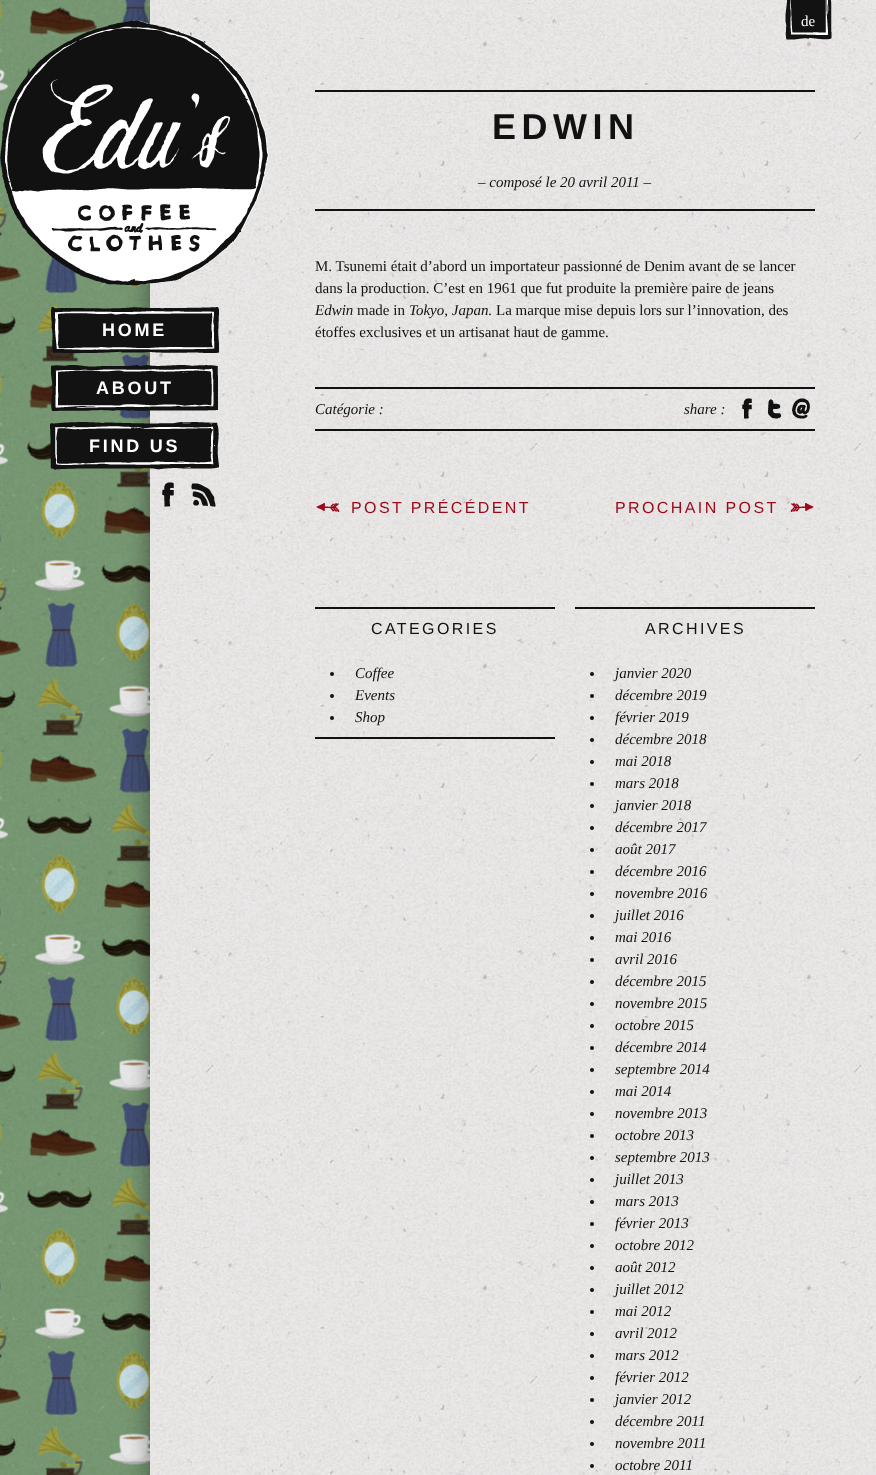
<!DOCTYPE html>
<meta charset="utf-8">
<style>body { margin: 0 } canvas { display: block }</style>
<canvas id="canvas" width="876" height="1475"></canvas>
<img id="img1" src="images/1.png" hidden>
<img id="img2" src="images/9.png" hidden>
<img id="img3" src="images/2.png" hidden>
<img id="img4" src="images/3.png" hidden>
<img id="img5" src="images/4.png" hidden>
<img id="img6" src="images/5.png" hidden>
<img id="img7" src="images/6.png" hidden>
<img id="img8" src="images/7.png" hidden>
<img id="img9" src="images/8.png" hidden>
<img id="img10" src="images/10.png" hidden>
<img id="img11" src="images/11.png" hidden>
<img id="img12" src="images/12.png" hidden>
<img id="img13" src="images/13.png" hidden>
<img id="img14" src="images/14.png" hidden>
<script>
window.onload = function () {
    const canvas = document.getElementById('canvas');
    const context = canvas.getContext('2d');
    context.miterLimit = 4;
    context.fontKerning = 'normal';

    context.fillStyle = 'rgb(255, 255, 255)';
    context.fillRect(0, 0, 876, 1475);
    context.drawImage(document.getElementById('img1'), 0, 0, 150, 1475);
    context.fillStyle = 'rgba(10, 10, 10, 0.45)';
    context.filter = 'blur(12.5px)';
    context.beginPath();
    context.rect(150, 0, 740, 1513);
    context.fill();
    context.filter = 'none';
    context.drawImage(document.getElementById('img2'), 150, 0, 726, 1475);
    context.drawImage(document.getElementById('img3'), 785, 0, 47, 40);
    context.drawImage(document.getElementById('img4'), 0, 20, 269, 266);
    context.drawImage(document.getElementById('img5'), 51, 307, 168, 46);
    context.drawImage(document.getElementById('img6'), 51, 365, 167, 46);
    context.drawImage(document.getElementById('img7'), 50, 422, 169, 48);
    context.drawImage(document.getElementById('img8'), 162, 482, 12, 25);
    context.drawImage(document.getElementById('img9'), 191, 483, 25, 24);
    context.fillStyle = 'rgb(17, 17, 17)';
    context.fillRect(315, 90, 500, 2);
    context.fillRect(315, 429, 500, 2);
    context.fillRect(315, 209, 500, 2);
    context.fillRect(315, 387, 500, 2);
    context.drawImage(document.getElementById('img10'), 742, 398, 10, 21);
    context.drawImage(document.getElementById('img11'), 768, 399, 13, 20);
    context.drawImage(document.getElementById('img12'), 792, 398, 18, 21);
    context.drawImage(document.getElementById('img13'), 316, 503, 24, 9);
    context.drawImage(document.getElementById('img14'), 790, 503, 24, 9);
    context.fillRect(315, 607, 240, 2);
    context.fillRect(315, 737, 240, 2);
    context.beginPath();
    context.arc(332, 674, 2, 0, 2 * Math.PI);
    context.fill();
    context.beginPath();
    context.arc(332, 696, 2, 0, 2 * Math.PI);
    context.fill();
    context.beginPath();
    context.arc(332, 718, 2, 0, 2 * Math.PI);
    context.fill();
    context.fillRect(575, 607, 240, 2);
    context.beginPath();
    context.arc(592, 674, 2, 0, 2 * Math.PI);
    context.fill();
    context.beginPath();
    context.arc(592, 696, 2, 0, 2 * Math.PI);
    context.fill();
    context.beginPath();
    context.arc(592, 718, 2, 0, 2 * Math.PI);
    context.fill();
    context.beginPath();
    context.arc(592, 740, 2, 0, 2 * Math.PI);
    context.fill();
    context.beginPath();
    context.arc(592, 762, 2, 0, 2 * Math.PI);
    context.fill();
    context.beginPath();
    context.arc(592, 784, 2, 0, 2 * Math.PI);
    context.fill();
    context.beginPath();
    context.arc(592, 806, 2, 0, 2 * Math.PI);
    context.fill();
    context.beginPath();
    context.arc(592, 828, 2, 0, 2 * Math.PI);
    context.fill();
    context.beginPath();
    context.arc(592, 850, 2, 0, 2 * Math.PI);
    context.fill();
    context.beginPath();
    context.arc(592, 872, 2, 0, 2 * Math.PI);
    context.fill();
    context.beginPath();
    context.arc(592, 894, 2, 0, 2 * Math.PI);
    context.fill();
    context.beginPath();
    context.arc(592, 916, 2, 0, 2 * Math.PI);
    context.fill();
    context.beginPath();
    context.arc(592, 938, 2, 0, 2 * Math.PI);
    context.fill();
    context.beginPath();
    context.arc(592, 960, 2, 0, 2 * Math.PI);
    context.fill();
    context.beginPath();
    context.arc(592, 982, 2, 0, 2 * Math.PI);
    context.fill();
    context.beginPath();
    context.arc(592, 1004, 2, 0, 2 * Math.PI);
    context.fill();
    context.beginPath();
    context.arc(592, 1026, 2, 0, 2 * Math.PI);
    context.fill();
    context.beginPath();
    context.arc(592, 1048, 2, 0, 2 * Math.PI);
    context.fill();
    context.beginPath();
    context.arc(592, 1070, 2, 0, 2 * Math.PI);
    context.fill();
    context.beginPath();
    context.arc(592, 1092, 2, 0, 2 * Math.PI);
    context.fill();
    context.beginPath();
    context.arc(592, 1114, 2, 0, 2 * Math.PI);
    context.fill();
    context.beginPath();
    context.arc(592, 1136, 2, 0, 2 * Math.PI);
    context.fill();
    context.beginPath();
    context.arc(592, 1158, 2, 0, 2 * Math.PI);
    context.fill();
    context.beginPath();
    context.arc(592, 1180, 2, 0, 2 * Math.PI);
    context.fill();
    context.beginPath();
    context.arc(592, 1202, 2, 0, 2 * Math.PI);
    context.fill();
    context.beginPath();
    context.arc(592, 1224, 2, 0, 2 * Math.PI);
    context.fill();
    context.beginPath();
    context.arc(592, 1246, 2, 0, 2 * Math.PI);
    context.fill();
    context.beginPath();
    context.arc(592, 1268, 2, 0, 2 * Math.PI);
    context.fill();
    context.beginPath();
    context.arc(592, 1290, 2, 0, 2 * Math.PI);
    context.fill();
    context.beginPath();
    context.arc(592, 1312, 2, 0, 2 * Math.PI);
    context.fill();
    context.beginPath();
    context.arc(592, 1334, 2, 0, 2 * Math.PI);
    context.fill();
    context.beginPath();
    context.arc(592, 1356, 2, 0, 2 * Math.PI);
    context.fill();
    context.beginPath();
    context.arc(592, 1378, 2, 0, 2 * Math.PI);
    context.fill();
    context.beginPath();
    context.arc(592, 1400, 2, 0, 2 * Math.PI);
    context.fill();
    context.beginPath();
    context.arc(592, 1422, 2, 0, 2 * Math.PI);
    context.fill();
    context.beginPath();
    context.arc(592, 1444, 2, 0, 2 * Math.PI);
    context.fill();
    context.beginPath();
    context.arc(592, 1466, 2, 0, 2 * Math.PI);
    context.fill();
    context.font = '15px Liberation Serif';
    context.fillStyle = 'rgb(255, 255, 255)';
    context.fillText('de', 801, 26);
    context.letterSpacing = '2.75px';
    context.font = 'bold 18px Liberation Sans';
    context.fillText('HOME', 102, 336);
    context.fillText('ABOUT', 96, 394);
    context.fillText('FIND US', 89, 452);
    context.letterSpacing = '5.5px';
    context.font = 'bold 36px Liberation Sans';
    context.fillStyle = 'rgb(17, 17, 17)';
    context.fillText('EDWIN', 492, 139);
    context.letterSpacing = '0px';
    context.font = 'italic 15px Liberation Serif';
    context.fillText('– composé le 20 avril 2011 –', 478, 187);
    context.font = '15px Liberation Serif';
    context.fillText('M. Tsunemi était d’abord un importateur passionné de Denim avant de se lancer', 315, 271);
    context.fillText('dans la production. C’est en 1961 que fut produite la première paire de jeans', 315, 293);
    context.font = 'italic 15px Liberation Serif';
    context.fillText('Edwin', 315, 315);
    context.font = '15px Liberation Serif';
    context.fillText('made in', 357, 315);
    context.font = 'italic 15px Liberation Serif';
    context.fillText('Tokyo, Japan.', 409, 315);
    context.font = '15px Liberation Serif';
    context.fillText('La marque mise depuis lors sur l’innovation, des', 496, 315);
    context.fillText('étoffes exclusives et un artisanat haut de gamme.', 315, 337);
    context.font = 'italic 15px Liberation Serif';
    context.fillText('Catégorie :', 315, 414);
    context.fillText('share :', 684, 414);
    context.letterSpacing = '2.4px';
    context.font = '16px Liberation Sans';
    context.fillStyle = 'rgb(156, 8, 27)';
    context.fillText('POST PRÉCÉDENT', 351, 513);
    context.fillText('PROCHAIN POST', 615, 513);
    context.fillStyle = 'rgb(17, 17, 17)';
    context.fillText('CATEGORIES', 371, 634);
    context.letterSpacing = '0px';
    context.font = 'italic 15px Liberation Serif';
    context.fillText('Coffee', 355, 678);
    context.fillText('Events', 355, 700);
    context.fillText('Shop', 355, 722);
    context.letterSpacing = '2.4px';
    context.font = '16px Liberation Sans';
    context.fillText('ARCHIVES', 645, 634);
    context.letterSpacing = '0px';
    context.font = 'italic 15px Liberation Serif';
    context.fillText('janvier 2020', 615, 678);
    context.fillText('décembre 2019', 615, 700);
    context.fillText('février 2019', 615, 722);
    context.fillText('décembre 2018', 615, 744);
    context.fillText('mai 2018', 615, 766);
    context.fillText('mars 2018', 615, 788);
    context.fillText('janvier 2018', 615, 810);
    context.fillText('décembre 2017', 615, 832);
    context.fillText('août 2017', 615, 854);
    context.fillText('décembre 2016', 615, 876);
    context.fillText('novembre 2016', 615, 898);
    context.fillText('juillet 2016', 615, 920);
    context.fillText('mai 2016', 615, 942);
    context.fillText('avril 2016', 615, 964);
    context.fillText('décembre 2015', 615, 986);
    context.fillText('novembre 2015', 615, 1008);
    context.fillText('octobre 2015', 615, 1030);
    context.fillText('décembre 2014', 615, 1052);
    context.fillText('septembre 2014', 615, 1074);
    context.fillText('mai 2014', 615, 1096);
    context.fillText('novembre 2013', 615, 1118);
    context.fillText('octobre 2013', 615, 1140);
    context.fillText('septembre 2013', 615, 1162);
    context.fillText('juillet 2013', 615, 1184);
    context.fillText('mars 2013', 615, 1206);
    context.fillText('février 2013', 615, 1228);
    context.fillText('octobre 2012', 615, 1250);
    context.fillText('août 2012', 615, 1272);
    context.fillText('juillet 2012', 615, 1294);
    context.fillText('mai 2012', 615, 1316);
    context.fillText('avril 2012', 615, 1338);
    context.fillText('mars 2012', 615, 1360);
    context.fillText('février 2012', 615, 1382);
    context.fillText('janvier 2012', 615, 1404);
    context.fillText('décembre 2011', 615, 1426);
    context.fillText('novembre 2011', 615, 1448);
    context.fillText('octobre 2011', 615, 1470);
};
</script>
